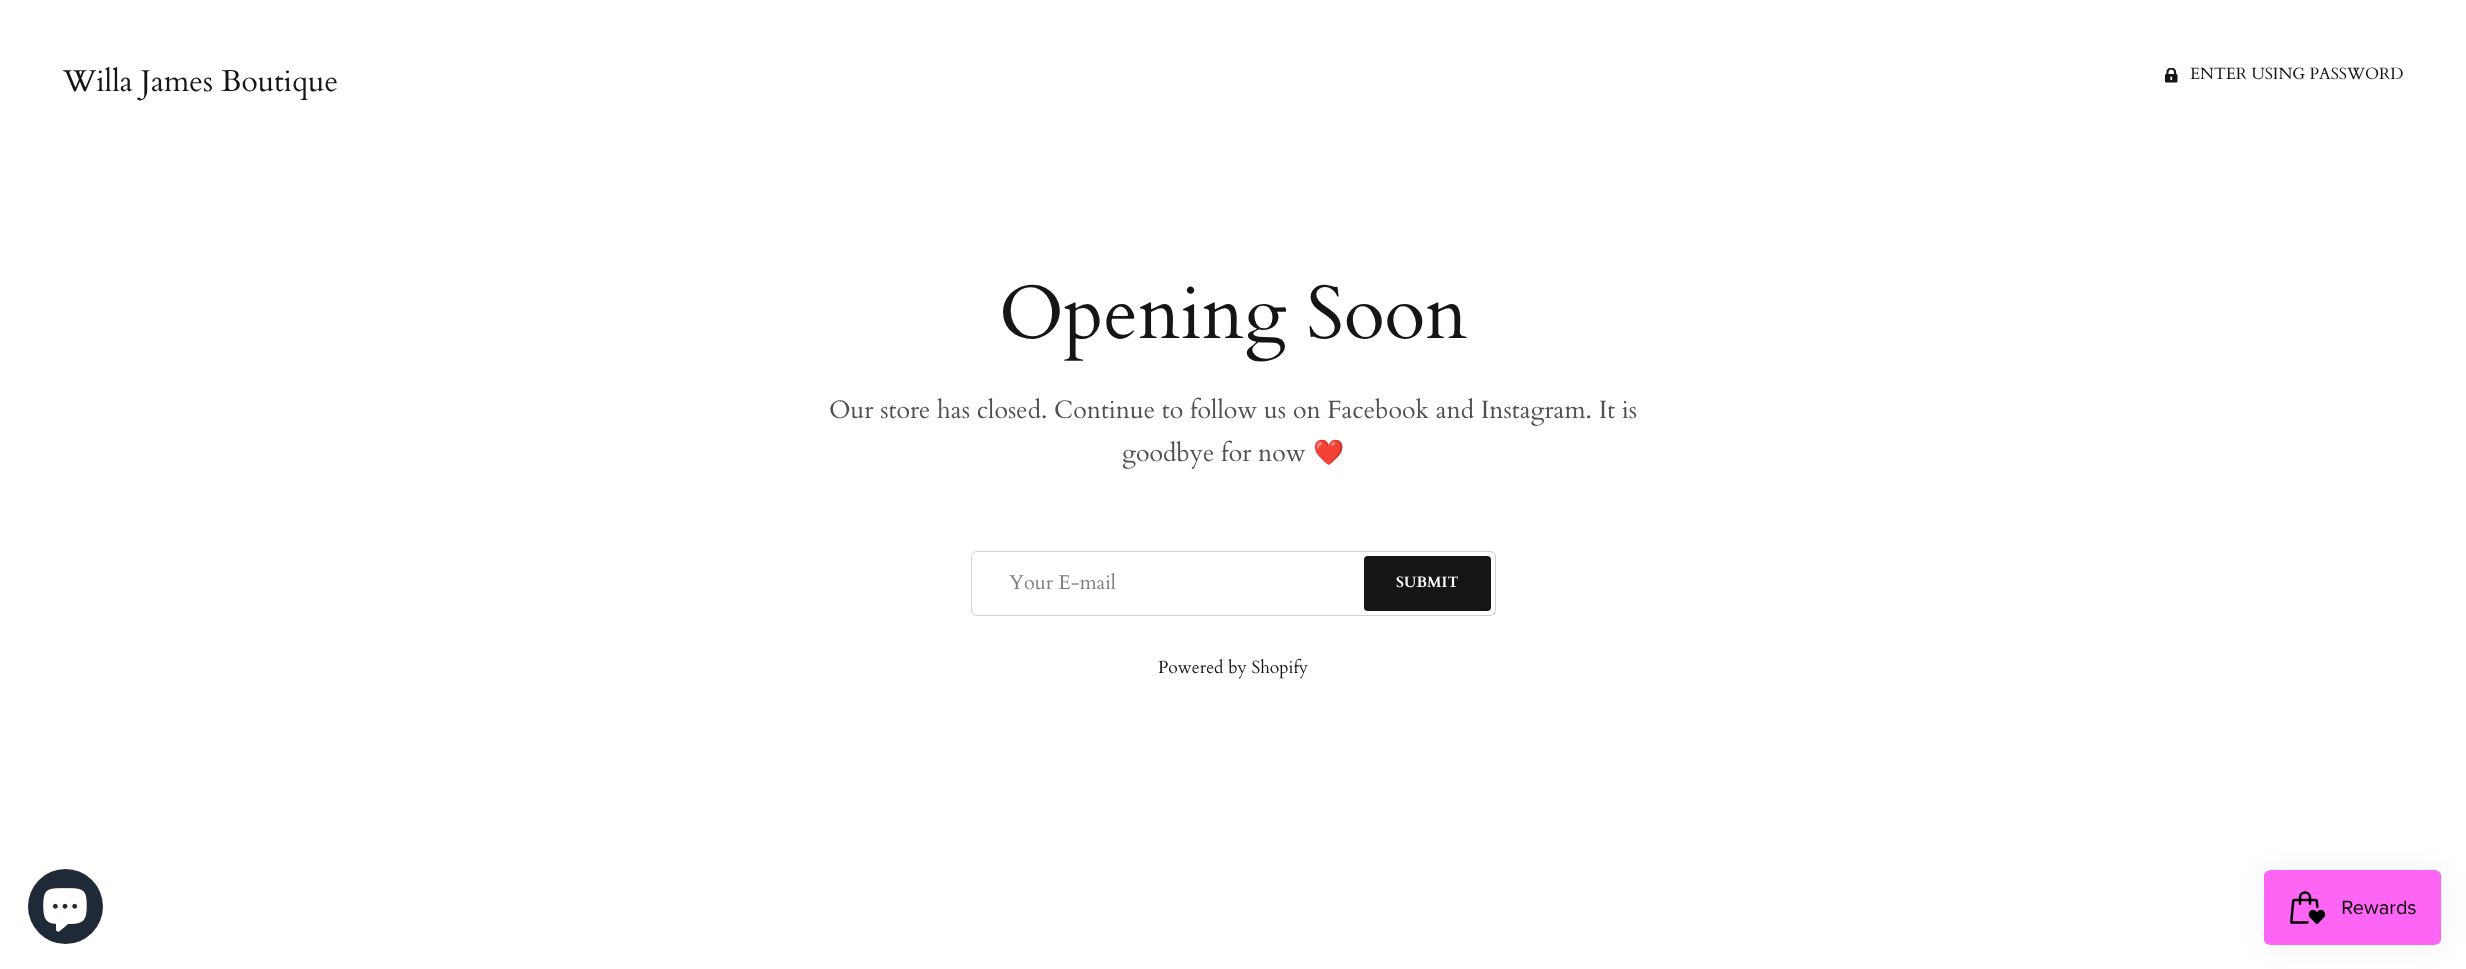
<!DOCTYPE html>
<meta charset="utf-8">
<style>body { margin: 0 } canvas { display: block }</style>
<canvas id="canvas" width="2466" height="969"></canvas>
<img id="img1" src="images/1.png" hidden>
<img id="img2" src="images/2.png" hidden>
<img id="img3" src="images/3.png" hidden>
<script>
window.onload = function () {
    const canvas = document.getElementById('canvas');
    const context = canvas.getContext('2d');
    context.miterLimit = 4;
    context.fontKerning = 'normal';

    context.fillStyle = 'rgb(255, 255, 255)';
    context.fillRect(0, 0, 2466, 969);
    context.drawImage(document.getElementById('img1'), 2165, 68, 13, 15);
    context.beginPath();
    context.roundRect(971.5, 551.5, 524, 64, 5.5);
    context.strokeStyle = 'rgb(208, 208, 208)';
    context.stroke();
    context.fillStyle = 'rgb(21, 21, 21)';
    context.beginPath();
    context.roundRect(1364, 556, 127, 55, 4);
    context.fill();
    context.fillStyle = 'rgb(32, 42, 54)';
    context.beginPath();
    context.arc(65.5, 906.5, 37.5, 0, 2 * Math.PI);
    context.fill();
    context.drawImage(document.getElementById('img2'), 43, 888, 44, 44);
    context.fillStyle = 'rgba(0, 0, 0, 0.05)';
    context.filter = 'blur(15.5px)';
    context.beginPath();
    context.roundRect(2264, 870, 177, 75, 6);
    context.fill();
    context.filter = 'none';
    context.drawImage(document.getElementById('img3'), 2264, 870, 177, 75);
    context.font = '30px Cardo';
    context.fillStyle = 'rgb(21, 21, 21)';
    context.fillText('Willa James Boutique', 63, 91);
    context.font = '16.25px Cardo';
    context.fillText('ENTER USING PASSWORD', 2190, 79);
    context.font = '75px Cardo';
    context.fillText('Opening Soon', 999, 338);
    context.font = '25px Cardo';
    context.fillStyle = 'rgb(80, 80, 80)';
    context.fillText('Our store has closed. Continue to follow us on Facebook and Instagram. It is', 829, 418);
    context.fillText('goodbye for now', 1122, 461);
    context.font = '25px Noto Color Emoji';
    context.fillText('❤️', 1313, 461);
    context.font = '20px Cardo';
    context.fillStyle = 'rgb(126, 126, 126)';
    context.fillText('Your E-mail', 1009, 589);
    context.font = 'bold 15px Cardo';
    context.fillStyle = 'rgb(255, 255, 255)';
    context.fillText('SUBMIT', 1396, 587);
    context.font = '17.5px Cardo';
    context.fillStyle = 'rgb(21, 21, 21)';
    context.fillText('Powered by Shopify', 1158, 673);
};
</script>
